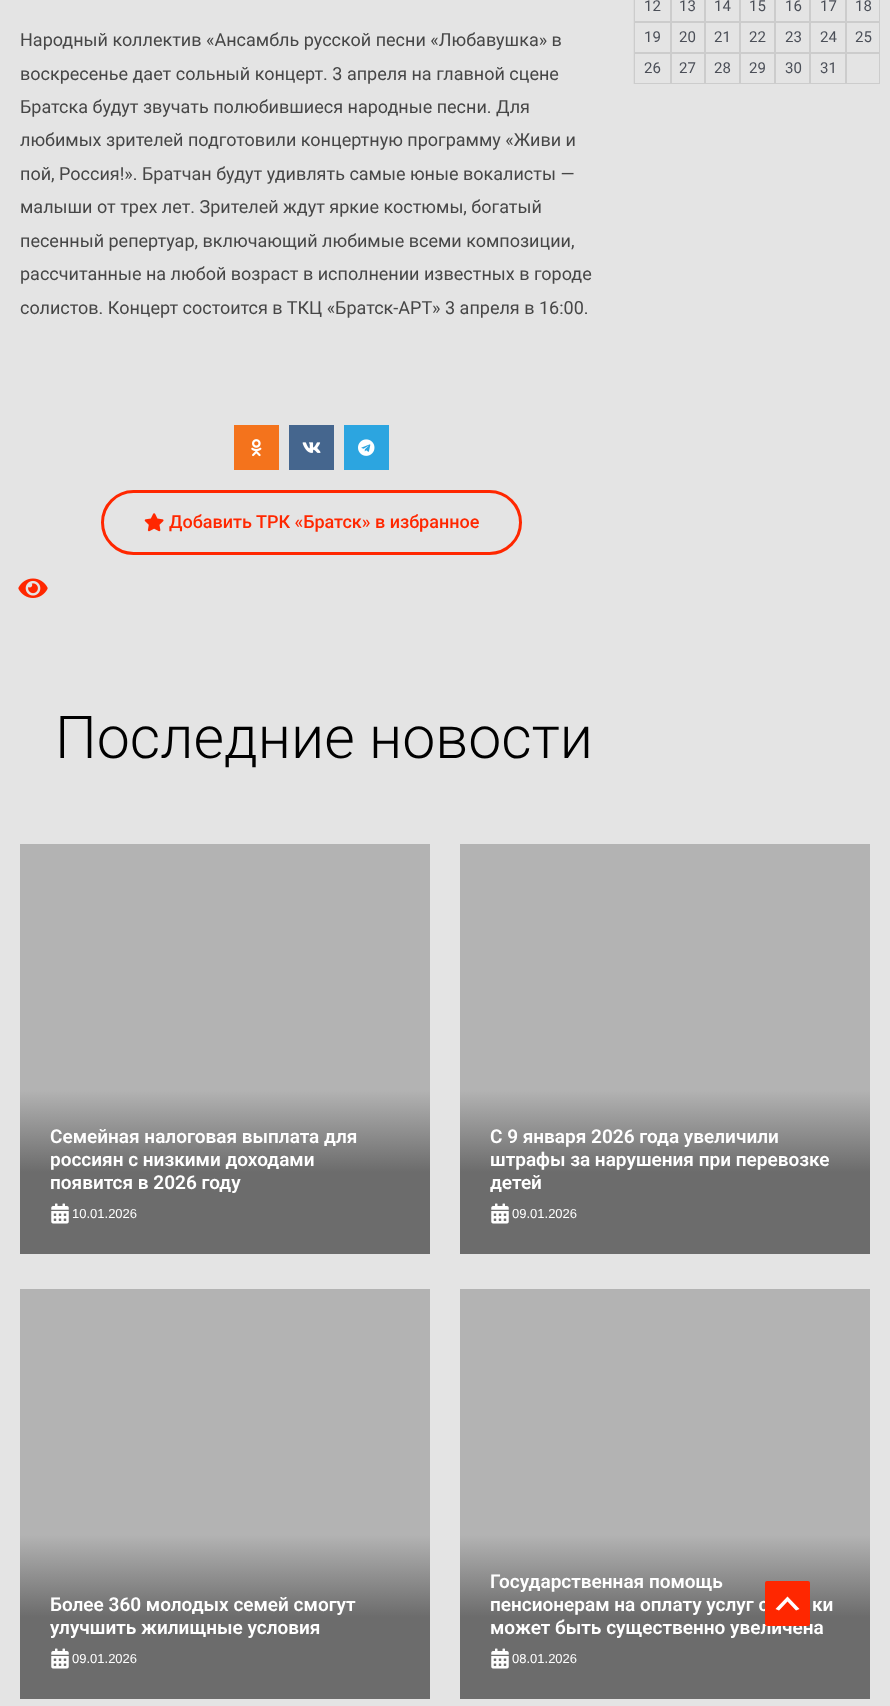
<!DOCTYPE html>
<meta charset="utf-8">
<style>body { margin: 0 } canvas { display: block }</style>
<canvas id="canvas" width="890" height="1706"></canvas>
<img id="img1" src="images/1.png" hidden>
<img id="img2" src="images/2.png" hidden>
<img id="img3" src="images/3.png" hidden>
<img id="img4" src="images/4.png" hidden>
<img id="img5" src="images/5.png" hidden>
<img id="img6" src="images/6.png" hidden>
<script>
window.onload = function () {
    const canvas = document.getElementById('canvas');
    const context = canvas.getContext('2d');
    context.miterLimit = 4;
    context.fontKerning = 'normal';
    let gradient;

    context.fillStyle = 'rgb(228, 228, 228)';
    context.fillRect(0, 0, 890, 1706);
    context.fillStyle = 'rgb(244, 115, 28)';
    context.fillRect(234, 425, 45, 45);
    context.drawImage(document.getElementById('img1'), 251, 439, 11, 18);
    context.fillStyle = 'rgb(69, 102, 142)';
    context.fillRect(289, 425, 45, 45);
    context.drawImage(document.getElementById('img2'), 302, 442, 19, 11);
    context.fillStyle = 'rgb(44, 165, 224)';
    context.fillRect(344, 425, 45, 45);
    context.drawImage(document.getElementById('img3'), 358, 439, 17, 17);
    context.beginPath();
    context.roundRect(102.5, 491.5, 418, 62, 31);
    context.strokeStyle = 'rgb(255, 39, 0)';
    context.lineWidth = 3;
    context.stroke();
    context.drawImage(document.getElementById('img4'), 144, 513, 20, 19);
    context.drawImage(document.getElementById('img5'), 18, 578, 30, 20);
    context.fillStyle = 'rgb(221, 221, 221)';
    context.fillRect(633, 0, 1, 84);
    context.strokeStyle = 'rgb(204, 204, 204)';
    context.lineWidth = 1;
    context.strokeRect(634.5, -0.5, 36, 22);
    context.strokeRect(671.5, -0.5, 33, 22);
    context.strokeRect(705.5, -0.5, 34, 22);
    context.strokeRect(740.5, -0.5, 34, 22);
    context.strokeRect(775.5, -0.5, 34, 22);
    context.strokeRect(810.5, -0.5, 35, 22);
    context.strokeRect(846.5, -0.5, 33, 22);
    context.strokeRect(634.5, 22.5, 36, 30);
    context.strokeRect(671.5, 22.5, 33, 30);
    context.strokeRect(705.5, 22.5, 34, 30);
    context.strokeRect(740.5, 22.5, 34, 30);
    context.strokeRect(775.5, 22.5, 34, 30);
    context.strokeRect(810.5, 22.5, 35, 30);
    context.strokeRect(846.5, 22.5, 33, 30);
    context.strokeRect(634.5, 53.5, 36, 30);
    context.strokeRect(671.5, 53.5, 33, 30);
    context.strokeRect(705.5, 53.5, 34, 30);
    context.strokeRect(740.5, 53.5, 34, 30);
    context.strokeRect(775.5, 53.5, 34, 30);
    context.strokeRect(810.5, 53.5, 35, 30);
    context.strokeRect(846.5, 53.5, 33, 30);
    gradient = context.createLinearGradient(225, 844, 225, 1254);
    gradient.addColorStop(0.6, 'rgb(179, 179, 179)');
    gradient.addColorStop(0.8, 'rgb(108, 108, 108)');
    context.fillStyle = gradient;
    context.fillRect(20, 844, 410, 410);
    context.drawImage(document.getElementById('img6'), 51, 1203, 18, 21);
    gradient = context.createLinearGradient(665, 844, 665, 1254);
    gradient.addColorStop(0.6, 'rgb(179, 179, 179)');
    gradient.addColorStop(0.8, 'rgb(108, 108, 108)');
    context.fillStyle = gradient;
    context.fillRect(460, 844, 410, 410);
    context.drawImage(document.getElementById('img6'), 491, 1203, 18, 21);
    gradient = context.createLinearGradient(225, 1289, 225, 1699);
    gradient.addColorStop(0.6, 'rgb(179, 179, 179)');
    gradient.addColorStop(0.8, 'rgb(108, 108, 108)');
    context.fillStyle = gradient;
    context.fillRect(20, 1289, 410, 410);
    context.drawImage(document.getElementById('img6'), 51, 1648, 18, 21);
    gradient = context.createLinearGradient(665, 1289, 665, 1699);
    gradient.addColorStop(0.6, 'rgb(179, 179, 179)');
    gradient.addColorStop(0.8, 'rgb(108, 108, 108)');
    context.fillStyle = gradient;
    context.fillRect(460, 1289, 410, 410);
    context.drawImage(document.getElementById('img6'), 491, 1648, 18, 21);
    context.font = '18px Roboto';
    context.fillStyle = 'rgb(70, 70, 70)';
    context.fillText('Народный коллектив «Ансамбль русской песни «Любавушка» в', 20, 46);
    context.fillText('воскресенье дает сольный концерт. 3 апреля на главной сцене', 20, 80);
    context.fillText('Братска будут звучать полюбившиеся народные песни. Для', 20, 113);
    context.fillText('любимых зрителей подготовили концертную программу «Живи и', 20, 146);
    context.fillText('пой, Россия!». Братчан будут удивлять самые юные вокалисты —', 20, 180);
    context.fillText('малыши от трех лет. Зрителей ждут яркие костюмы, богатый', 20, 213);
    context.fillText('песенный репертуар, включающий любимые всеми композиции,', 20, 247);
    context.fillText('рассчитанные на любой возраст в исполнении известных в городе', 20, 280);
    context.fillText('солистов. Концерт состоится в ТКЦ «Братск-АРТ» 3 апреля в 16:00.', 20, 314);
    context.font = '500 18px Roboto';
    context.fillStyle = 'rgb(255, 39, 0)';
    context.fillText('Добавить ТРК «Братск» в избранное', 169, 528);
    context.font = '15px Roboto';
    context.fillStyle = 'rgb(75, 79, 88)';
    context.fillText('12', 644, 11);
    context.fillText('13', 679, 11);
    context.fillText('14', 714, 11);
    context.fillText('15', 749, 11);
    context.fillText('16', 785, 11);
    context.fillText('17', 820, 11);
    context.fillText('18', 855, 11);
    context.fillText('19', 644, 42);
    context.fillText('20', 679, 42);
    context.fillText('21', 714, 42);
    context.fillText('22', 749, 42);
    context.fillText('23', 785, 42);
    context.fillText('24', 820, 42);
    context.fillText('25', 855, 42);
    context.fillText('26', 644, 73);
    context.fillText('27', 679, 73);
    context.fillText('28', 714, 73);
    context.fillText('29', 749, 73);
    context.fillText('30', 785, 73);
    context.fillText('31', 820, 73);
    context.font = '300 59px Roboto';
    context.fillStyle = 'rgb(0, 0, 0)';
    context.fillText('Последние новости', 55, 758);
    context.font = '600 19px Roboto';
    context.fillStyle = 'rgb(255, 255, 255)';
    context.fillText('Семейная налоговая выплата для', 50, 1143);
    context.fillText('россиян с низкими доходами', 50, 1166);
    context.fillText('появится в 2026 году', 50, 1189);
    context.font = '13px Liberation Sans';
    context.fillText('10.01.2026', 72, 1218);
    context.font = '600 19px Roboto';
    context.fillText('С 9 января 2026 года увеличили', 490, 1143);
    context.fillText('штрафы за нарушения при перевозке', 490, 1166);
    context.fillText('детей', 490, 1189);
    context.font = '13px Liberation Sans';
    context.fillText('09.01.2026', 512, 1218);
    context.font = '600 19px Roboto';
    context.fillText('Более 360 молодых семей смогут', 50, 1611);
    context.fillText('улучшить жилищные условия', 50, 1634);
    context.font = '13px Liberation Sans';
    context.fillText('09.01.2026', 72, 1663);
    context.font = '600 19px Roboto';
    context.fillText('Государственная помощь', 490, 1588);
    context.fillText('пенсионерам на оплату услуг с', 490, 1611);
    context.fillText('ки', 812, 1611);
    context.fillText('может быть существенно увеличена', 490, 1634);
    context.font = '13px Liberation Sans';
    context.fillText('08.01.2026', 512, 1663);
    context.fillStyle = 'rgb(255, 39, 0)';
    context.beginPath();
    context.roundRect(765, 1581, 45, 45, 2);
    context.fill();
    context.fillStyle = 'rgb(255, 255, 255)';
    context.beginPath();
    context.moveTo(796, 1610.5);
    context.lineTo(787.5, 1601.5);
    context.lineTo(779, 1610.5);
    context.lineTo(775.5, 1609);
    context.lineTo(787.5, 1596.5);
    context.lineTo(799.5, 1609);
    context.closePath();
    context.fill();
};
</script>
